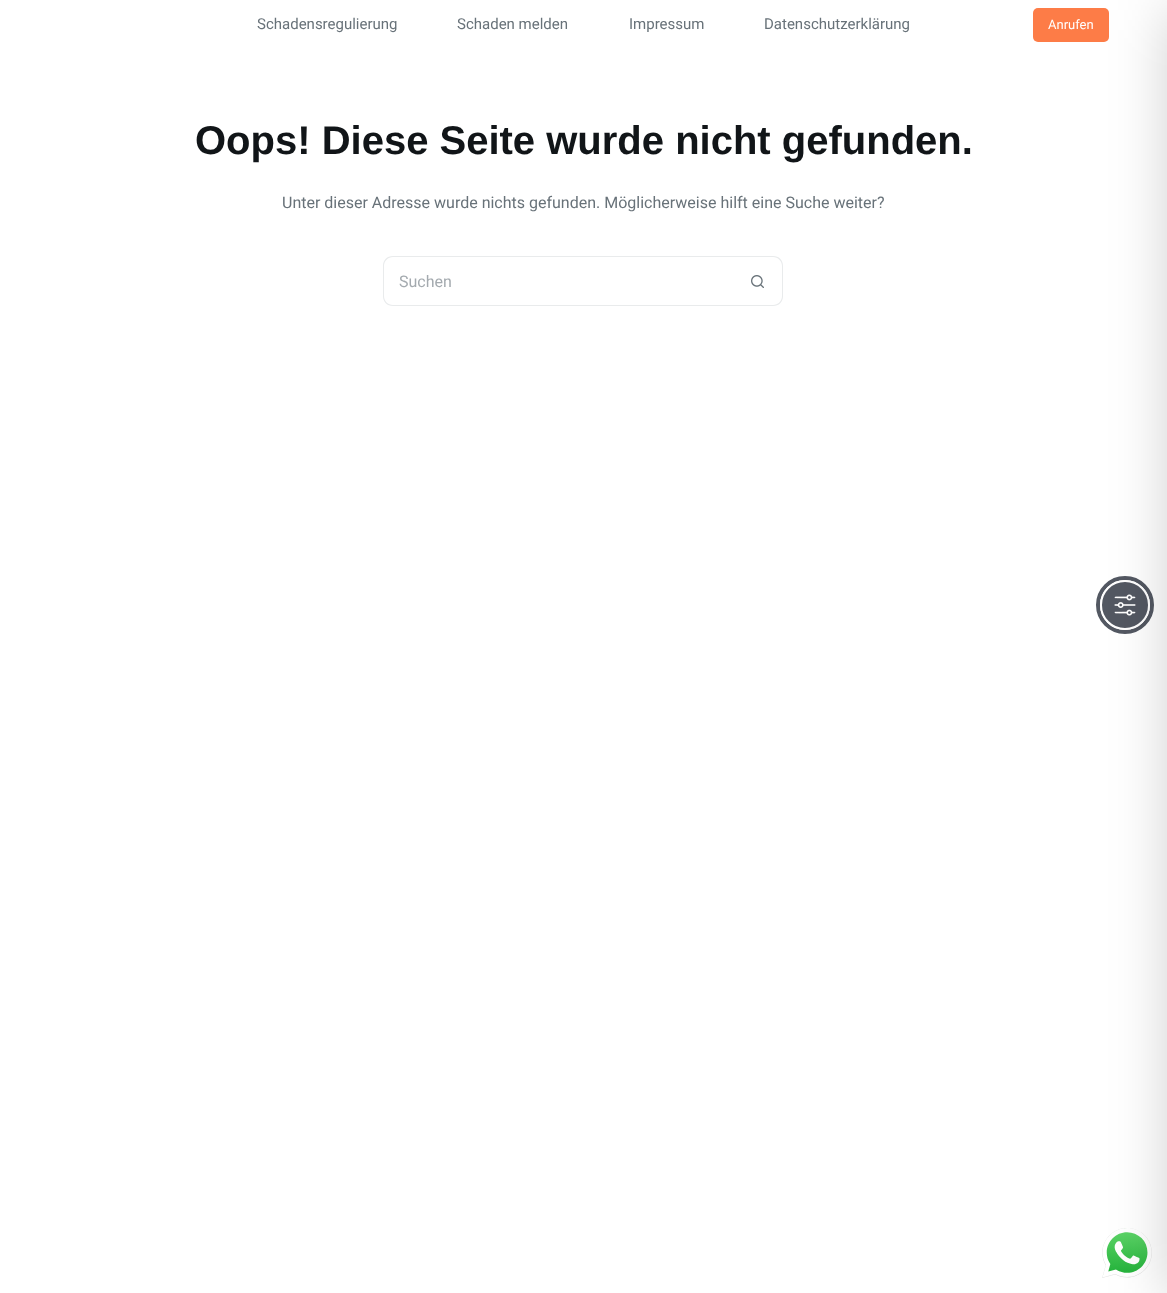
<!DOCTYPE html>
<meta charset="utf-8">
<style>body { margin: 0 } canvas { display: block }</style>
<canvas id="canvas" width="1167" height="1293"></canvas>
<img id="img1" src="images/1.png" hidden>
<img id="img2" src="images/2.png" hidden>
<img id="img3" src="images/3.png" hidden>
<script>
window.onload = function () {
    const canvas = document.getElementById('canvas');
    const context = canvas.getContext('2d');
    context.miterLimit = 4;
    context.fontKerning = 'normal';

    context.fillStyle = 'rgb(255, 255, 255)';
    context.fillRect(0, 0, 1167, 1293);
    context.fillStyle = 'rgb(253, 124, 71)';
    context.beginPath();
    context.roundRect(1033, 8, 76, 34, 5);
    context.fill();
    context.fillStyle = 'rgb(233, 235, 236)';
    context.beginPath();
    context.moveTo(393, 256);
    context.lineTo(733, 256);
    context.lineTo(733, 306);
    context.lineTo(393, 306);
    context.bezierCurveTo(387, 306, 383, 302, 383, 296);
    context.lineTo(383, 266);
    context.bezierCurveTo(383, 260, 387, 256, 393, 256);
    context.closePath();
    context.moveTo(393, 257);
    context.lineTo(733, 257);
    context.lineTo(733, 305);
    context.lineTo(393, 305);
    context.bezierCurveTo(388, 305, 384, 301, 384, 296);
    context.lineTo(384, 266);
    context.bezierCurveTo(384, 261, 388, 257, 393, 257);
    context.closePath();
    context.fill('evenodd');
    context.beginPath();
    context.moveTo(733, 256);
    context.lineTo(773, 256);
    context.bezierCurveTo(779, 256, 783, 260, 783, 266);
    context.lineTo(783, 296);
    context.bezierCurveTo(783, 302, 779, 306, 773, 306);
    context.lineTo(733, 306);
    context.closePath();
    context.moveTo(733, 257);
    context.lineTo(773, 257);
    context.bezierCurveTo(778, 257, 782, 261, 782, 266);
    context.lineTo(782, 296);
    context.bezierCurveTo(782, 301, 778, 305, 773, 305);
    context.lineTo(733, 305);
    context.closePath();
    context.fill('evenodd');
    context.drawImage(document.getElementById('img1'), 751, 275, 13, 13);
    context.beginPath();
    context.arc(1125, 605, 27, 0, 2 * Math.PI);
    context.strokeStyle = 'rgb(83, 88, 98)';
    context.lineWidth = 4;
    context.stroke();
    context.fillStyle = 'rgb(83, 88, 98)';
    context.beginPath();
    context.arc(1125, 605, 24, 0, 2 * Math.PI);
    context.fill();
    context.strokeStyle = 'rgb(255, 255, 255)';
    context.lineWidth = 2;
    context.stroke();
    context.drawImage(document.getElementById('img2'), 1114, 594, 22, 22);
    context.drawImage(document.getElementById('img3'), 1102, 1228, 50, 50);
    context.fillStyle = 'rgba(0, 0, 0, 0.2)';
    context.filter = 'blur(30px)';
    context.beginPath();
    context.rect(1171, 10, 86, 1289);
    context.fill();
    context.filter = 'none';
    context.font = '15px Roboto';
    context.fillStyle = 'rgb(104, 114, 121)';
    context.fillText('Schadensregulierung', 257, 29);
    context.fillText('Schaden melden', 457, 29);
    context.fillText('Impressum', 629, 29);
    context.fillText('Datenschutzerklärung', 764, 29);
    context.font = '13px Roboto';
    context.fillStyle = 'rgb(255, 255, 255)';
    context.fillText('Anrufen', 1048, 29);
    context.font = 'bold 40px Liberation Sans';
    context.fillStyle = 'rgb(17, 21, 24)';
    context.fillText('Oops! Diese Seite wurde nicht gefunden.', 195, 154);
    context.font = '16px Roboto';
    context.fillStyle = 'rgb(104, 114, 121)';
    context.fillText('Unter dieser Adresse wurde nichts gefunden. Möglicherweise hilft eine Suche weiter?', 282, 208);
    context.fillStyle = 'rgb(164, 170, 175)';
    context.fillText('Suchen', 399, 287);
};
</script>
